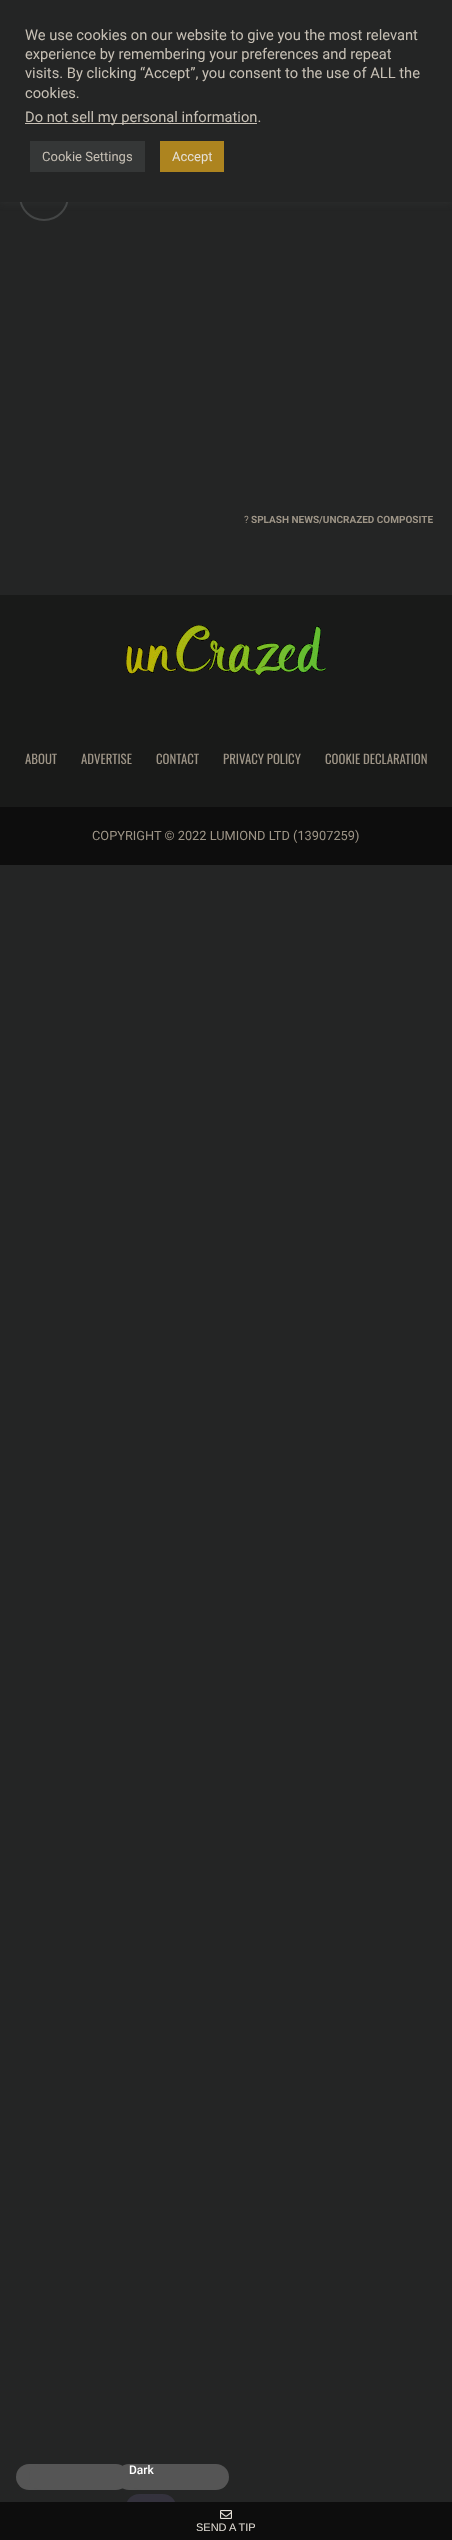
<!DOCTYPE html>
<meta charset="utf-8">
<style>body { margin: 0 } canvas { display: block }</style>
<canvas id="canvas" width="452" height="2540"></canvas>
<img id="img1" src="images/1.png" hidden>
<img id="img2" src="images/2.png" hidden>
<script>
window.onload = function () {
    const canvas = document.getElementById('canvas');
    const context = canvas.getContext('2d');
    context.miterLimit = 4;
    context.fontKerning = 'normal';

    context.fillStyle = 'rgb(36, 37, 37)';
    context.fillRect(0, 0, 452, 2540);
    context.beginPath();
    context.arc(44, 196, 24, 0, 2 * Math.PI);
    context.strokeStyle = 'rgb(68, 70, 70)';
    context.lineWidth = 2;
    context.stroke();
    context.fillStyle = 'rgba(80, 84, 84, 0.3)';
    context.filter = 'blur(5px)';
    context.beginPath();
    context.rect(0, -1, 452, 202);
    context.fill();
    context.filter = 'none';
    context.fillStyle = 'rgb(36, 37, 37)';
    context.fillRect(0, 0, 452, 202);
    context.fillStyle = 'rgb(199, 192, 181)';
    context.fillRect(25, 123, 232, 1);
    context.fillStyle = 'rgb(53, 55, 55)';
    context.fillRect(30, 141, 115, 31);
    context.fillStyle = 'rgb(173, 132, 31)';
    context.fillRect(160, 141, 64, 31);
    context.fillStyle = 'rgb(25, 26, 25)';
    context.fillRect(0, 595, 452, 212);
    context.drawImage(document.getElementById('img1'), 126, 625, 200, 50);
    context.fillStyle = 'rgb(13, 13, 13)';
    context.fillRect(0, 807, 452, 58);
    context.fillStyle = 'rgb(85, 85, 85)';
    context.beginPath();
    context.roundRect(16, 2464, 100, 26, 13);
    context.fill();
    context.fillStyle = 'rgb(52, 50, 61)';
    context.beginPath();
    context.roundRect(126, 2494, 50, 26, 13);
    context.fill();
    context.fillStyle = 'rgb(85, 85, 85)';
    context.beginPath();
    context.roundRect(116, 2464, 100, 26, 13);
    context.fill();
    context.beginPath();
    context.roundRect(29, 2464, 100, 26, 13);
    context.fill();
    context.beginPath();
    context.roundRect(129, 2464, 100, 26, 13);
    context.fill();
    context.fillStyle = 'rgb(13, 13, 13)';
    context.fillRect(0, 2502, 452, 38);
    context.drawImage(document.getElementById('img2'), 220, 2510, 12, 9);
    context.font = '14.7px Roboto';
    context.fillStyle = 'rgb(199, 192, 181)';
    context.fillText('We use cookies on our website to give you the most relevant', 25, 40);
    context.fillText('experience by remembering your preferences and repeat', 25, 59);
    context.fillText('visits. By clicking “Accept”, you consent to the use of ALL the', 25, 78);
    context.fillText('cookies.', 25, 98);
    context.fillText('Do not sell my personal information.', 25, 122);
    context.font = '13px Roboto';
    context.fillText('Cookie Settings', 42, 161);
    context.fillStyle = 'rgb(229, 224, 216)';
    context.fillText('Accept', 172, 161);
    context.font = '10px Roboto';
    context.fillStyle = 'rgb(158, 149, 135)';
    context.fillText('?', 244, 523);
    context.font = 'bold 10px Roboto';
    context.fillText('SPLASH NEWS/UNCRAZED COMPOSITE', 251, 523);
    context.font = '12.8px Oswald';
    context.fillText('ABOUT', 25, 764);
    context.fillText('ADVERTISE', 81, 764);
    context.fillText('CONTACT', 156, 764);
    context.fillText('PRIVACY POLICY', 223, 764);
    context.fillText('COOKIE DECLARATION', 325, 764);
    context.font = '12.8px Roboto';
    context.fillText('COPYRIGHT © 2022 LUMIOND LTD (13907259)', 92, 840);
    context.font = '500 12px Roboto';
    context.fillStyle = 'rgb(255, 255, 255)';
    context.fillText('Dark', 129, 2474);
    context.font = '11px Liberation Sans';
    context.fillStyle = 'rgb(229, 224, 216)';
    context.fillText('SEND A TIP', 196, 2531);
};
</script>
